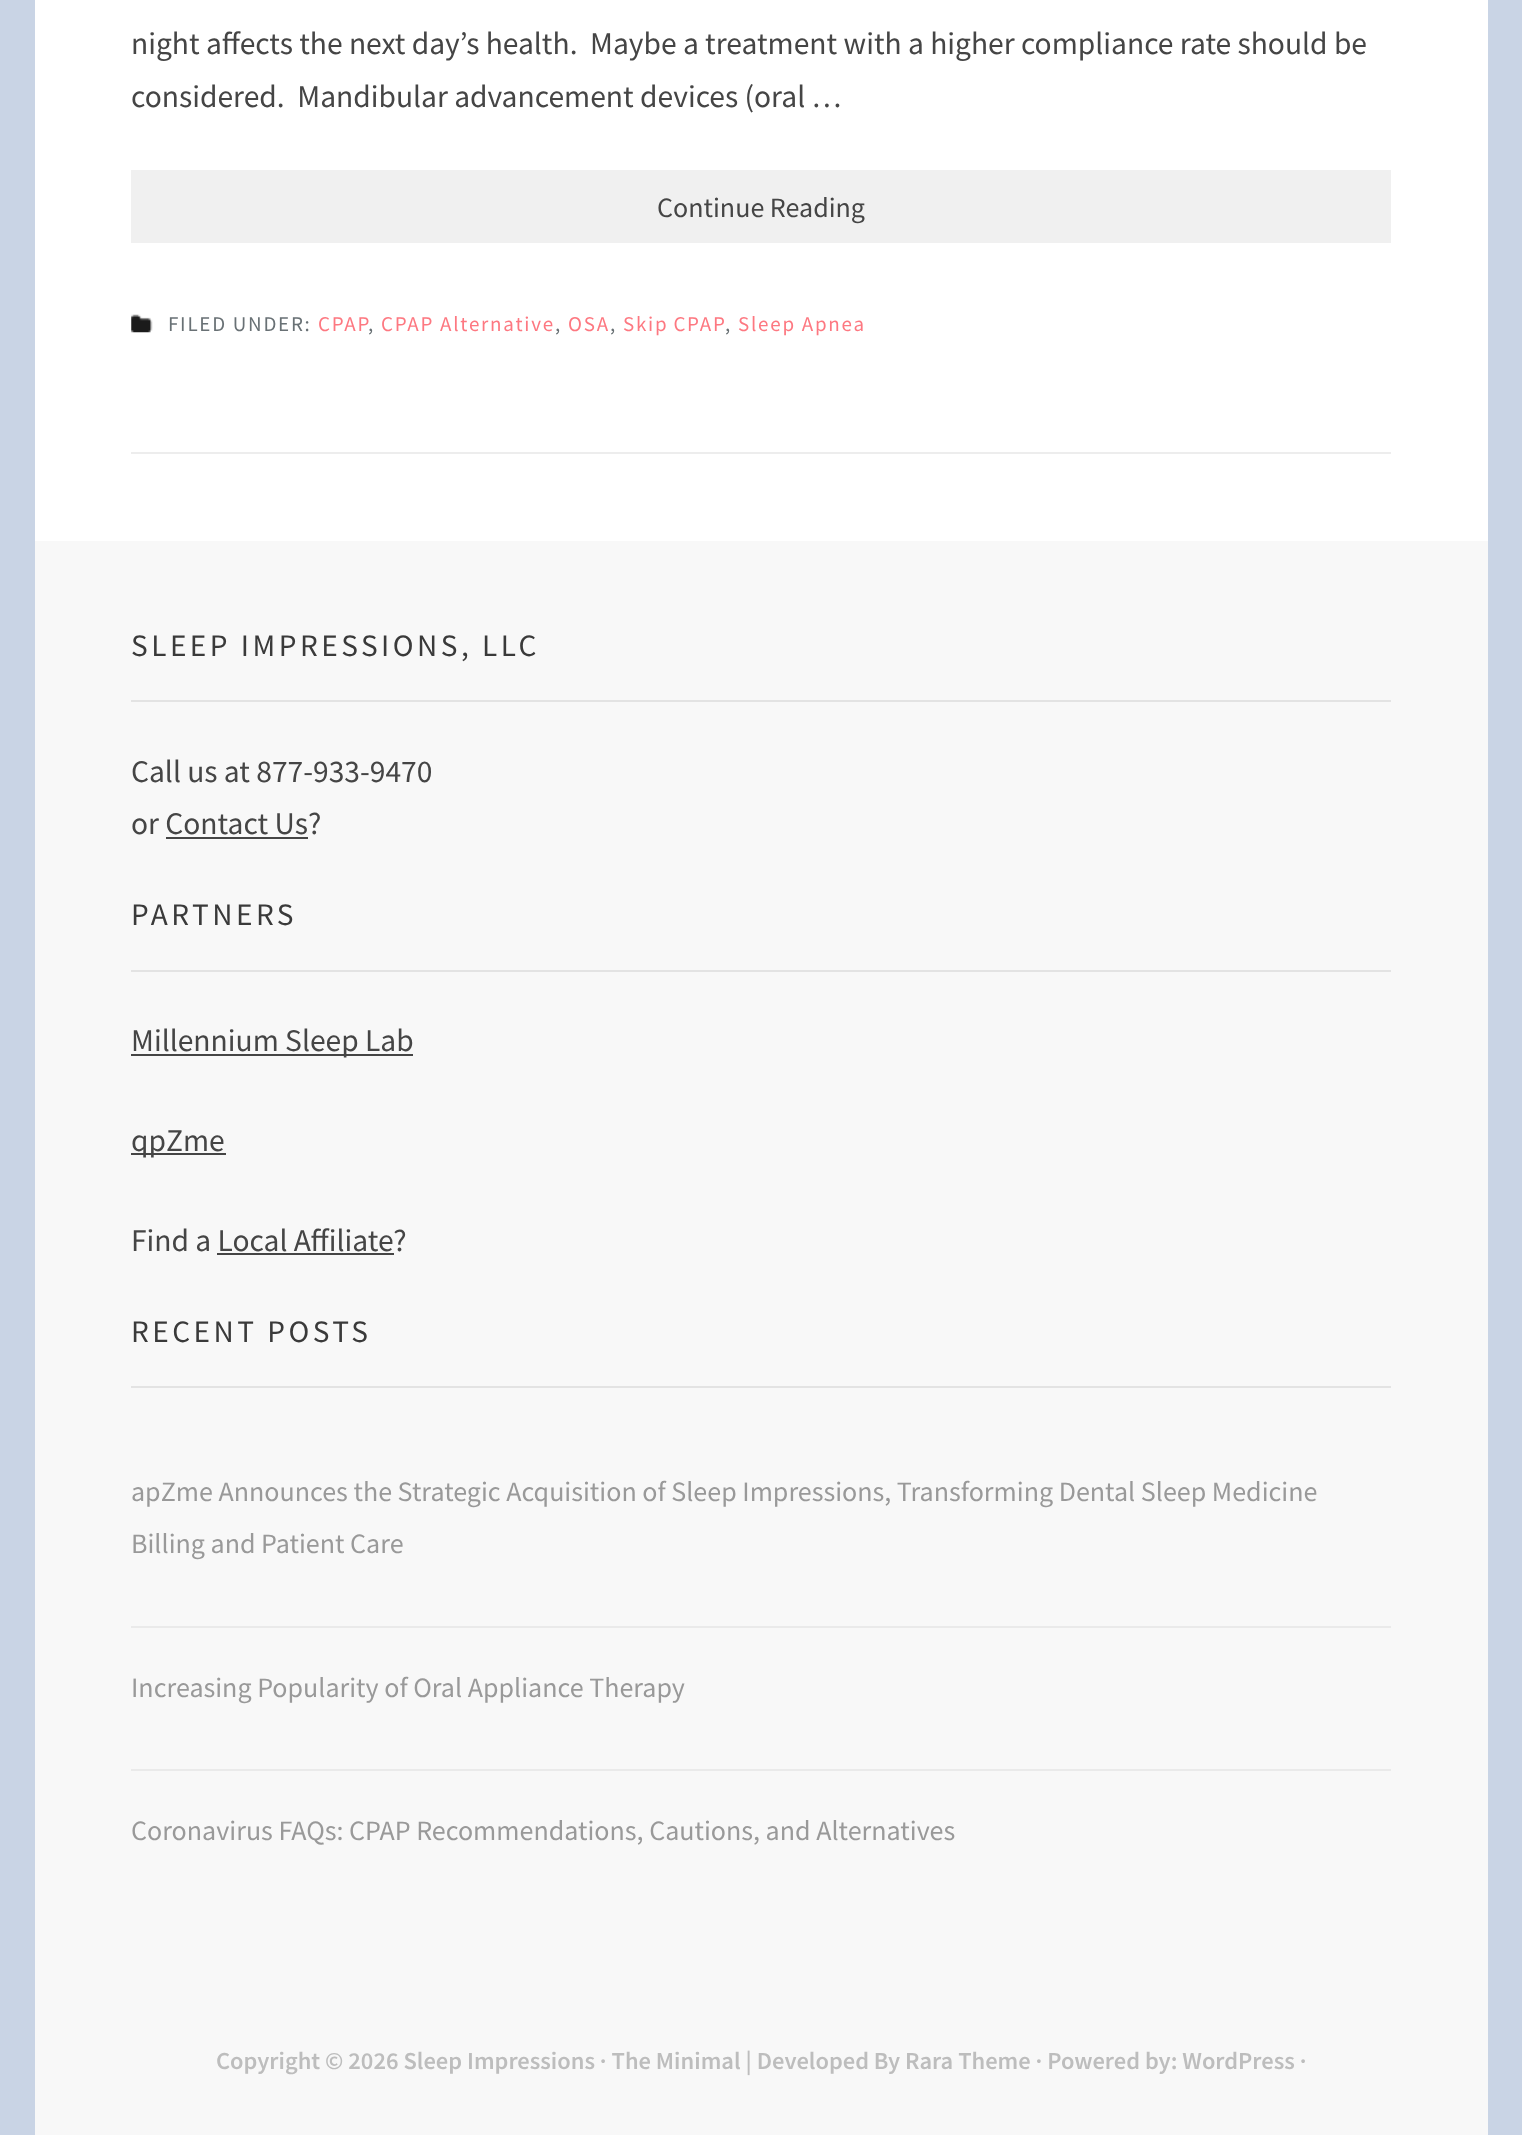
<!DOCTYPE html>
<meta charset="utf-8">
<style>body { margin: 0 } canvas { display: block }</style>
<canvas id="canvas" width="1522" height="2135"></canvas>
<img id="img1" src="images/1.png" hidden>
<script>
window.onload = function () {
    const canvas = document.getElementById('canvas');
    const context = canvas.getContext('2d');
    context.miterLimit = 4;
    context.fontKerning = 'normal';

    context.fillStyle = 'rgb(201, 212, 229)';
    context.fillRect(0, 0, 1522, 2135);
    context.fillStyle = 'rgb(255, 255, 255)';
    context.fillRect(35, 0, 1453, 541);
    context.fillStyle = 'rgb(237, 237, 237)';
    context.fillRect(131, 452, 1260, 2);
    context.fillStyle = 'rgb(240, 240, 240)';
    context.fillRect(131, 170, 1260, 73);
    context.drawImage(document.getElementById('img1'), 131, 314, 22, 19);
    context.fillStyle = 'rgb(248, 248, 248)';
    context.fillRect(35, 541, 1453, 1594);
    context.fillStyle = 'rgb(227, 227, 227)';
    context.fillRect(131, 700, 1260, 2);
    context.fillStyle = 'rgb(69, 69, 69)';
    context.fillRect(166, 837, 142, 2);
    context.fillStyle = 'rgb(227, 227, 227)';
    context.fillRect(131, 970, 1260, 2);
    context.fillStyle = 'rgb(69, 69, 69)';
    context.fillRect(131, 1054, 282, 2);
    context.fillRect(131, 1153, 95, 2);
    context.fillRect(217, 1253, 177, 2);
    context.fillStyle = 'rgb(227, 227, 227)';
    context.fillRect(131, 1386, 1260, 2);
    context.fillStyle = 'rgb(234, 234, 234)';
    context.fillRect(131, 1626, 1260, 2);
    context.fillRect(131, 1769, 1260, 2);
    context.font = '31.5px Source Sans Pro';
    context.fillStyle = 'rgb(69, 69, 69)';
    context.fillText('night affects the next day’s health.  Maybe a treatment with a higher compliance rate should be', 131, 54);
    context.fillText('considered.  Mandibular advancement devices (oral …', 131, 107);
    context.font = '28px Source Sans Pro';
    context.fillText('Continue Reading', 657, 217);
    context.letterSpacing = '1.75px';
    context.font = '21px Source Sans Pro';
    context.fillStyle = 'rgb(105, 113, 117)';
    context.fillText('FILED UNDER:', 168, 331);
    context.fillStyle = 'rgb(253, 120, 129)';
    context.fillText('CPAP', 318, 331);
    context.fillStyle = 'rgb(105, 113, 117)';
    context.fillText(',', 368, 331);
    context.fillStyle = 'rgb(253, 120, 129)';
    context.fillText('CPAP Alternative', 381, 331);
    context.fillStyle = 'rgb(105, 113, 117)';
    context.fillText(',', 555, 331);
    context.fillStyle = 'rgb(253, 120, 129)';
    context.fillText('OSA', 568, 331);
    context.fillStyle = 'rgb(105, 113, 117)';
    context.fillText(',', 610, 331);
    context.wordSpacing = '-1px';
    context.fillStyle = 'rgb(253, 120, 129)';
    context.fillText('Skip CPAP', 623, 331);
    context.wordSpacing = '0px';
    context.fillStyle = 'rgb(105, 113, 117)';
    context.fillText(',', 725, 331);
    context.fillStyle = 'rgb(253, 120, 129)';
    context.fillText('Sleep Apnea', 738, 331);
    context.letterSpacing = '3.5px';
    context.font = '31.25px Source Sans Pro';
    context.fillStyle = 'rgb(58, 58, 58)';
    context.fillText('SLEEP IMPRESSIONS, LLC', 131, 656);
    context.letterSpacing = '0px';
    context.font = '31.5px Source Sans Pro';
    context.fillStyle = 'rgb(69, 69, 69)';
    context.fillText('Call us at 877-933-9470', 131, 782);
    context.fillText('or Contact Us', 131, 834);
    context.fillText('?', 308, 834);
    context.letterSpacing = '3.5px';
    context.font = '31.25px Source Sans Pro';
    context.fillStyle = 'rgb(58, 58, 58)';
    context.fillText('PARTNERS', 131, 925);
    context.letterSpacing = '0px';
    context.font = '31.5px Source Sans Pro';
    context.fillStyle = 'rgb(69, 69, 69)';
    context.fillText('Millennium Sleep Lab', 131, 1051);
    context.fillText('qpZme', 131, 1151);
    context.fillText('Find a Local Affiliate?', 131, 1251);
    context.letterSpacing = '3.5px';
    context.font = '31.25px Source Sans Pro';
    context.fillStyle = 'rgb(58, 58, 58)';
    context.fillText('RECENT POSTS', 131, 1342);
    context.letterSpacing = '0px';
    context.font = '28px Source Sans Pro';
    context.fillStyle = 'rgb(153, 153, 153)';
    context.fillText('apZme Announces the Strategic Acquisition of Sleep Impressions, Transforming Dental Sleep Medicine', 131, 1501);
    context.fillText('Billing and Patient Care', 131, 1553);
    context.fillText('Increasing Popularity of Oral Appliance Therapy', 131, 1697);
    context.fillText('Coronavirus FAQs: CPAP Recommendations, Cautions, and Alternatives', 131, 1840);
    context.font = '600 24.5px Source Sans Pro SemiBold';
    context.fillStyle = 'rgb(189, 189, 189)';
    context.fillText('Copyright © 2026 Sleep Impressions · The Minimal | Developed By Rara Theme · Powered by: WordPress ·', 216, 2069);
};
</script>
